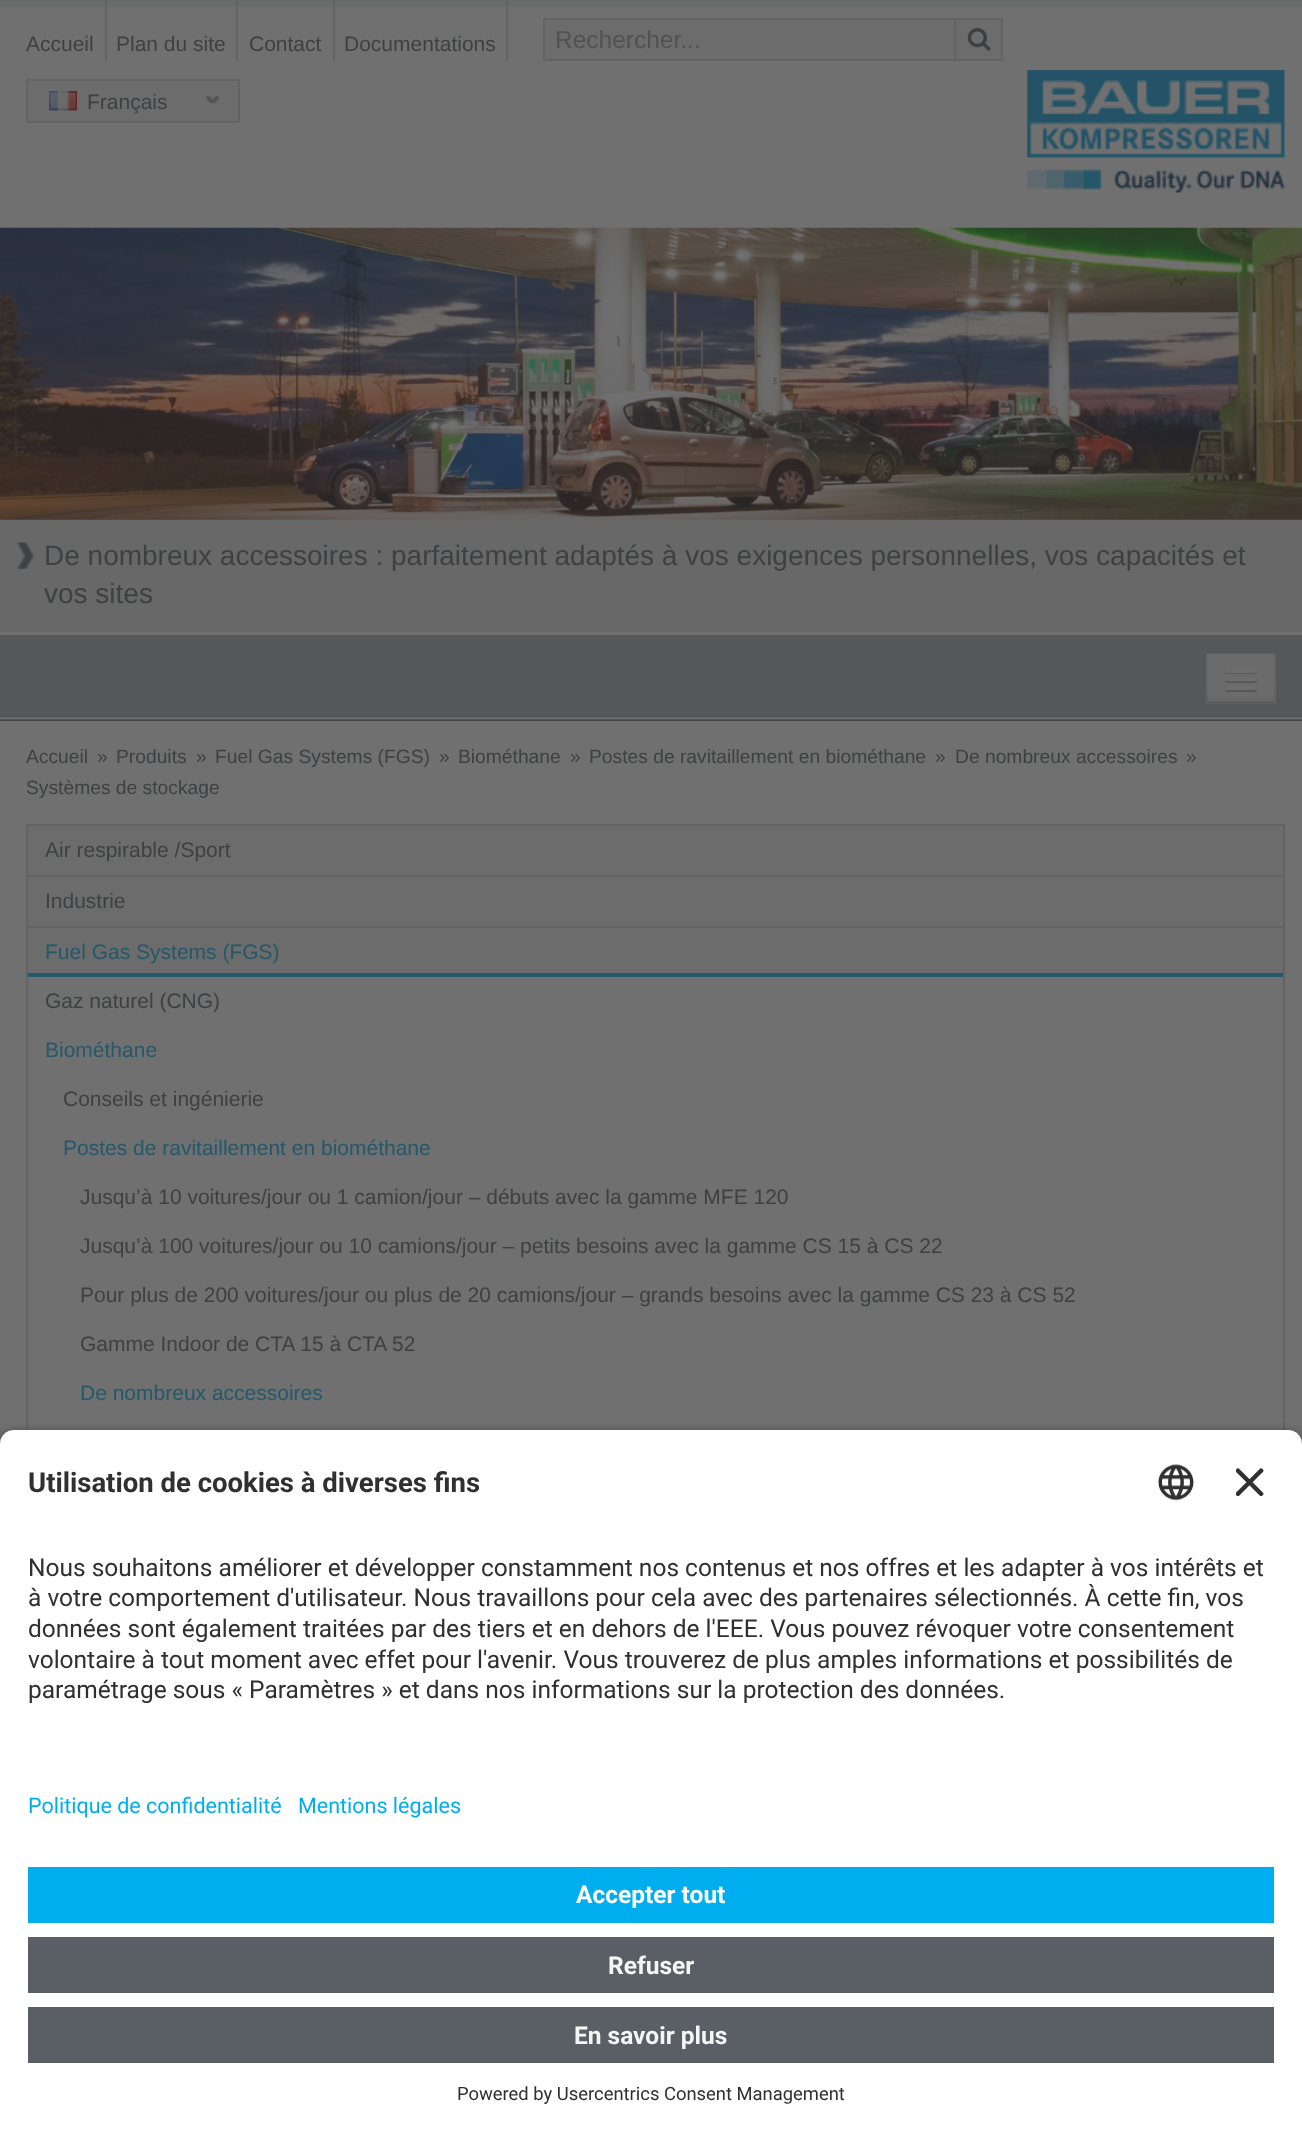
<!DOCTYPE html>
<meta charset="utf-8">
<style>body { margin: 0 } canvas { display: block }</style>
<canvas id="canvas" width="1302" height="2132"></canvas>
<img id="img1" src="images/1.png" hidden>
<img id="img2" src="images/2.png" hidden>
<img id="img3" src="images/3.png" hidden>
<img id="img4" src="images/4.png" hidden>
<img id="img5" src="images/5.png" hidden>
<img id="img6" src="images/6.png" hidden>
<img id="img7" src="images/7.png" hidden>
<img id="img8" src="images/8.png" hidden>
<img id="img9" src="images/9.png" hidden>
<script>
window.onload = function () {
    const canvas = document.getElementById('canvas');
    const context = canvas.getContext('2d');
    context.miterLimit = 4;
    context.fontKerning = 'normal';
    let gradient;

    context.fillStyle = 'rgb(112, 112, 112)';
    context.fillRect(0, 0, 1302, 2132);
    context.fillStyle = 'rgb(105, 106, 106)';
    context.fillRect(0, 0, 1302, 7);
    context.fillStyle = 'rgb(98, 99, 99)';
    context.fillRect(105, 0, 2, 61);
    context.fillRect(236, 0, 2, 61);
    context.fillRect(333, 0, 2, 61);
    context.fillRect(506, 0, 2, 61);
    context.fillStyle = 'rgb(108, 108, 108)';
    context.beginPath();
    context.roundRect(955, 19, 47, 41, [0, 1, 1, 0]);
    context.fill();
    context.strokeStyle = 'rgb(98, 99, 99)';
    context.lineWidth = 2;
    context.stroke();
    context.beginPath();
    context.roundRect(544, 19, 411, 41, 1);
    context.fill();
    context.stroke();
    context.drawImage(document.getElementById('img1'), 967, 28, 24, 23);
    context.beginPath();
    context.roundRect(27, 80, 212, 42, 1);
    context.fill();
    context.stroke();
    context.drawImage(document.getElementById('img2'), 206, 96, 13, 8);
    context.drawImage(document.getElementById('img3'), 49, 91, 28, 20);
    context.drawImage(document.getElementById('img4'), 1027, 70, 258, 123);
    context.fillStyle = 'rgb(104, 104, 104)';
    context.fillRect(0, 519, 1302, 113);
    context.drawImage(document.getElementById('img5'), 0, 227, 1302, 293);
    context.drawImage(document.getElementById('img6'), 17, 542, 17, 27);
    context.fillStyle = 'rgb(86, 87, 89)';
    context.fillRect(0, 635, 1302, 82);
    context.drawImage(document.getElementById('img7'), 0, 717, 1302, 4);
    context.fillStyle = 'rgb(107, 107, 107)';
    context.beginPath();
    context.roundRect(1206, 653, 70, 51, 2);
    context.fill();
    gradient = context.createLinearGradient(1241, 655, 1241, 702);
    gradient.addColorStop(0, 'rgb(108, 108, 108)');
    gradient.addColorStop(1, 'rgb(104, 104, 104)');
    context.fillStyle = gradient;
    context.fillRect(1206, 696, 70, 6);
    context.beginPath();
    context.moveTo(1274.5, 702.5);
    context.lineTo(1207, 702.5);
    context.strokeStyle = 'rgb(89, 89, 89)';
    context.lineWidth = 1.8;
    context.stroke();
    context.beginPath();
    context.moveTo(1207, 702.5);
    context.lineTo(1206.5, 662.5);
    context.bezierCurveTo(1206.5, 650.5, 1204.5, 653.5, 1218.5, 653.5);
    context.lineTo(1263, 653.5);
    context.bezierCurveTo(1277, 653.5, 1275, 650.5, 1275, 662.5);
    context.lineTo(1274.5, 702.5);
    context.strokeStyle = 'rgba(36, 36, 36, 0.1)';
    context.stroke();
    context.fillStyle = 'rgb(89, 89, 89)';
    context.beginPath();
    context.moveTo(1225, 671);
    context.bezierCurveTo(1223.5, 675, 1231, 674, 1231.5, 674);
    context.lineTo(1250.5, 674);
    context.bezierCurveTo(1251.5, 674, 1256.5, 675, 1257, 672.5);
    context.bezierCurveTo(1257, 672, 1257, 671, 1256.5, 670.5);
    context.bezierCurveTo(1256.5, 671.5, 1255.5, 672, 1255, 672);
    context.lineTo(1227, 672);
    context.bezierCurveTo(1226, 672, 1225.5, 671.5, 1225, 671);
    context.closePath();
    context.fill();
    context.fillStyle = 'rgb(109, 109, 109)';
    context.beginPath();
    context.roundRect(1225, 669, 32, 4, 2);
    context.fill();
    context.fillStyle = 'rgb(89, 89, 89)';
    context.beginPath();
    context.moveTo(1225.5, 680);
    context.bezierCurveTo(1223, 684, 1231, 683, 1231.5, 683);
    context.lineTo(1241, 683);
    context.bezierCurveTo(1243.5, 683, 1255, 683.5, 1256.5, 682.5);
    context.bezierCurveTo(1257, 681.5, 1257, 680.5, 1256.5, 679.5);
    context.lineTo(1255.5, 680.5);
    context.lineTo(1226.5, 680.5);
    context.closePath();
    context.fill();
    context.fillStyle = 'rgb(109, 109, 109)';
    context.beginPath();
    context.roundRect(1225, 677, 32, 4, 2);
    context.fill();
    context.fillStyle = 'rgb(88, 88, 88)';
    context.beginPath();
    context.moveTo(1225.5, 689);
    context.lineTo(1225, 690.5);
    context.bezierCurveTo(1225.5, 693, 1230.5, 692, 1231.5, 692);
    context.lineTo(1250.5, 692);
    context.bezierCurveTo(1252, 692, 1257, 693, 1257, 690);
    context.lineTo(1256.5, 688.5);
    context.bezierCurveTo(1256, 689, 1255.5, 689.5, 1255, 689.5);
    context.lineTo(1226.5, 689.5);
    context.closePath();
    context.fill();
    context.fillStyle = 'rgb(109, 109, 109)';
    context.beginPath();
    context.roundRect(1225, 686, 32, 4, 2);
    context.fill();
    context.fillStyle = 'rgb(98, 99, 99)';
    context.fillRect(26, 824, 1259, 2);
    context.fillRect(1283, 824, 2, 606);
    context.fillRect(26, 824, 2, 606);
    context.fillStyle = 'rgb(108, 108, 108)';
    context.fillRect(28, 826, 1255, 49);
    context.fillStyle = 'rgb(98, 99, 99)';
    context.fillRect(28, 875, 1255, 2);
    context.fillStyle = 'rgb(108, 108, 108)';
    context.fillRect(28, 877, 1255, 49);
    context.fillStyle = 'rgb(98, 99, 99)';
    context.fillRect(28, 926, 1255, 2);
    context.fillStyle = 'rgb(108, 108, 108)';
    context.fillRect(28, 928, 1255, 45);
    context.fillStyle = 'rgb(36, 88, 107)';
    context.fillRect(28, 973, 1255, 4);
    context.fillStyle = 'rgba(0, 0, 0, 0.8)';
    context.filter = 'blur(6px)';
    context.beginPath();
    context.roundRect(0, 1435, 1302, 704, 14);
    context.fill();
    context.filter = 'none';
    context.fillStyle = 'rgb(255, 255, 255)';
    context.beginPath();
    context.roundRect(0, 1430, 1302, 336, [14, 14, 0, 0]);
    context.fill();
    context.drawImage(document.getElementById('img8'), 1158, 1464, 36, 37);
    context.drawImage(document.getElementById('img9'), 1236, 1468, 28, 28);
    context.fillRect(0, 1766, 1302, 366);
    context.fillStyle = 'rgb(0, 174, 239)';
    context.fillRect(28, 1867, 1246, 56);
    context.fillStyle = 'rgb(90, 94, 101)';
    context.fillRect(28, 1937, 1246, 56);
    context.fillRect(28, 2007, 1246, 56);
    context.font = '21px Liberation Sans';
    context.fillStyle = 'rgb(63, 64, 66)';
    context.fillText('Accueil', 26, 51);
    context.fillText('Plan du site', 116, 51);
    context.fillText('Contact', 249, 51);
    context.fillText('Documentations', 344, 51);
    context.font = '24.5px Liberation Sans';
    context.fillStyle = 'rgb(82, 82, 82)';
    context.fillText('Rechercher...', 555, 48);
    context.font = '21px Liberation Sans';
    context.fillStyle = 'rgb(63, 64, 66)';
    context.fillText('Français', 87, 109);
    context.font = '28px Liberation Sans';
    context.fillText('De nombreux accessoires : parfaitement adaptés à vos exigences personnelles, vos capacités et', 44, 565);
    context.fillText('vos sites', 44, 603);
    context.font = '19.25px Liberation Sans';
    context.fillText('Accueil', 26, 763);
    context.fillText('»', 97, 763);
    context.fillText('Produits', 116, 763);
    context.fillText('»', 196, 763);
    context.fillText('Fuel Gas Systems (FGS)', 215, 763);
    context.fillText('»', 439, 763);
    context.fillText('Biométhane', 458, 763);
    context.fillText('»', 570, 763);
    context.fillText('Postes de ravitaillement en biométhane', 589, 763);
    context.fillText('»', 935, 763);
    context.fillText('De nombreux accessoires', 955, 763);
    context.fillText('»', 1186, 763);
    context.fillText('Systèmes de stockage', 26, 794);
    context.font = '21px Liberation Sans';
    context.fillText('Air respirable /Sport', 45, 857);
    context.fillText('Industrie', 45, 908);
    context.fillStyle = 'rgb(36, 88, 107)';
    context.fillText('Fuel Gas Systems (FGS)', 45, 959);
    context.fillStyle = 'rgb(63, 64, 66)';
    context.fillText('Gaz naturel (CNG)', 45, 1008);
    context.fillStyle = 'rgb(36, 88, 107)';
    context.fillText('Biométhane', 45, 1057);
    context.fillStyle = 'rgb(63, 64, 66)';
    context.fillText('Conseils et ingénierie', 63, 1106);
    context.fillStyle = 'rgb(36, 88, 107)';
    context.fillText('Postes de ravitaillement en biométhane', 63, 1155);
    context.fillStyle = 'rgb(63, 64, 66)';
    context.fillText('Jusqu’à 10 voitures/jour ou 1 camion/jour – débuts avec la gamme MFE 120', 80, 1204);
    context.fillText('Jusqu’à 100 voitures/jour ou 10 camions/jour – petits besoins avec la gamme CS 15 à CS 22', 80, 1253);
    context.fillText('Pour plus de 200 voitures/jour ou plus de 20 camions/jour – grands besoins avec la gamme CS 23 à CS 52', 80, 1302);
    context.fillText('Gamme Indoor de CTA 15 à CTA 52', 80, 1351);
    context.fillStyle = 'rgb(36, 88, 107)';
    context.fillText('De nombreux accessoires', 80, 1400);
    context.font = 'bold 27.5px Roboto';
    context.fillStyle = 'rgb(48, 48, 48)';
    context.fillText('Utilisation de cookies à diverses fins', 28, 1492);
    context.font = '24.5px Roboto';
    context.fillText('Nous souhaitons améliorer et développer constamment nos contenus et nos offres et les adapter à vos intérêts et', 28, 1576);
    context.fillText('à votre comportement d\'utilisateur. Nous travaillons pour cela avec des partenaires sélectionnés. À cette fin, vos', 28, 1606);
    context.fillText('données sont également traitées par des tiers et en dehors de l\'EEE. Vous pouvez révoquer votre consentement', 28, 1637);
    context.fillText('volontaire à tout moment avec effet pour l\'avenir. Vous trouverez de plus amples informations et possibilités de', 28, 1668);
    context.fillText('paramétrage sous « Paramètres » et dans nos informations sur la protection des données.', 28, 1698);
    context.font = '21.5px Roboto';
    context.fillStyle = 'rgb(0, 174, 239)';
    context.fillText('Politique de confidentialité', 28, 1813);
    context.fillText('Mentions légales', 298, 1813);
    context.font = 'bold 24.5px Roboto';
    context.fillStyle = 'rgb(255, 255, 255)';
    context.fillText('Accepter tout', 576, 1903);
    context.fillStyle = 'rgb(245, 245, 245)';
    context.fillText('Refuser', 608, 1974);
    context.fillText('En savoir plus', 574, 2044);
    context.font = '18.4px Roboto';
    context.fillStyle = 'rgb(48, 48, 48)';
    context.fillText('Powered by Usercentrics Consent Management', 457, 2100);
};
</script>
